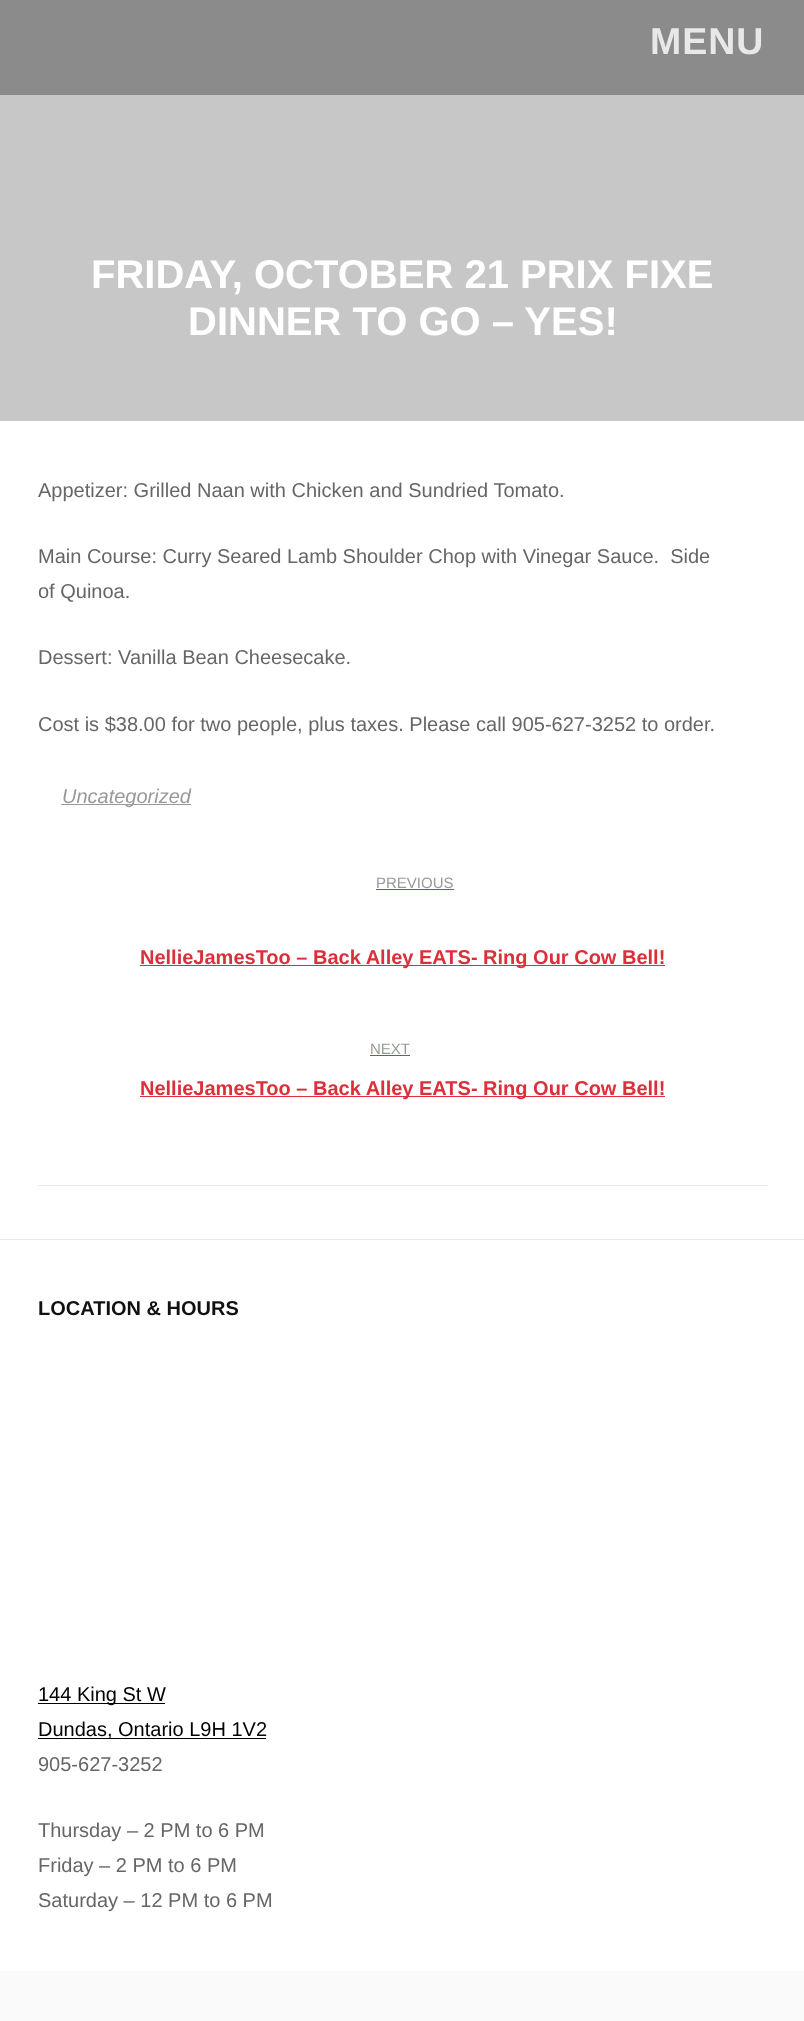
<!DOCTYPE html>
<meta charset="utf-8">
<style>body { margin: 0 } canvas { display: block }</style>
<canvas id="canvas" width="804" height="2021"></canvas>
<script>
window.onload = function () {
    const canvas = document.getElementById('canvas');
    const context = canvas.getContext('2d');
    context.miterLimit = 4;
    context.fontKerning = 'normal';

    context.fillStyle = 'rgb(255, 255, 255)';
    context.fillRect(0, 0, 804, 2021);
    context.fillStyle = 'rgb(139, 139, 139)';
    context.fillRect(0, 0, 804, 95);
    context.fillStyle = 'rgb(199, 199, 199)';
    context.fillRect(0, 95, 804, 326);
    context.fillStyle = 'rgb(235, 235, 235)';
    context.fillRect(0, 1239, 804, 1);
    context.fillStyle = 'rgb(153, 153, 153)';
    context.fillRect(61, 804, 130, 1);
    context.fillStyle = 'rgb(235, 235, 235)';
    context.fillRect(38, 1185, 730, 1);
    context.fillStyle = 'rgb(219, 47, 57)';
    context.fillRect(376, 889, 78, 1);
    context.fillRect(140, 965, 525, 1);
    context.fillRect(370, 1055, 40, 1);
    context.fillRect(140, 1096, 525, 1);
    context.fillStyle = 'rgb(0, 0, 0)';
    context.fillRect(38, 1703, 127, 1);
    context.fillRect(38, 1738, 228, 1);
    context.fillStyle = 'rgb(250, 250, 250)';
    context.fillRect(0, 1971, 804, 50);
    context.letterSpacing = '1px';
    context.font = 'bold 37.5px Liberation Sans';
    context.fillStyle = 'rgb(232, 232, 232)';
    context.fillText('MENU', 650, 54);
    context.letterSpacing = '0px';
    context.font = 'bold 40px Liberation Sans';
    context.fillStyle = 'rgb(255, 255, 255)';
    context.fillText('FRIDAY, OCTOBER 21 PRIX FIXE', 91, 288);
    context.fillText('DINNER TO GO – YES!', 188, 335);
    context.font = '20px Liberation Sans';
    context.fillStyle = 'rgb(102, 102, 102)';
    context.fillText('Appetizer: Grilled Naan with Chicken and Sundried Tomato.', 38, 497);
    context.fillText('Main Course: Curry Seared Lamb Shoulder Chop with Vinegar Sauce.  Side', 38, 563);
    context.fillText('of Quinoa.', 38, 598);
    context.fillText('Dessert: Vanilla Bean Cheesecake.', 38, 664);
    context.fillText('Cost is $38.00 for two people, plus taxes. Please call 905-627-3252 to order.', 38, 731);
    context.font = 'italic 20px Liberation Sans';
    context.fillStyle = 'rgb(153, 153, 153)';
    context.fillText('Uncategorized', 62, 803);
    context.font = '15px Liberation Sans';
    context.fillText('PREVIOUS', 376, 888);
    context.font = 'bold 20px Liberation Sans';
    context.fillStyle = 'rgb(219, 47, 57)';
    context.fillText('NellieJamesToo – Back Alley EATS- Ring Our Cow Bell!', 140, 964);
    context.font = '15px Liberation Sans';
    context.fillStyle = 'rgb(153, 153, 153)';
    context.fillText('NEXT', 370, 1054);
    context.font = 'bold 20px Liberation Sans';
    context.fillStyle = 'rgb(219, 47, 57)';
    context.fillText('NellieJamesToo – Back Alley EATS- Ring Our Cow Bell!', 140, 1095);
    context.fillStyle = 'rgb(17, 17, 17)';
    context.fillText('LOCATION & HOURS', 38, 1315);
    context.font = '20px Liberation Sans';
    context.fillStyle = 'rgb(0, 0, 0)';
    context.fillText('144 King St W', 38, 1701);
    context.fillText('Dundas, Ontario L9H 1V2', 38, 1736);
    context.fillStyle = 'rgb(102, 102, 102)';
    context.fillText('905-627-3252', 38, 1771);
    context.fillText('Thursday – 2 PM to 6 PM', 38, 1837);
    context.fillText('Friday – 2 PM to 6 PM', 38, 1872);
    context.fillText('Saturday – 12 PM to 6 PM', 38, 1907);
};
</script>
